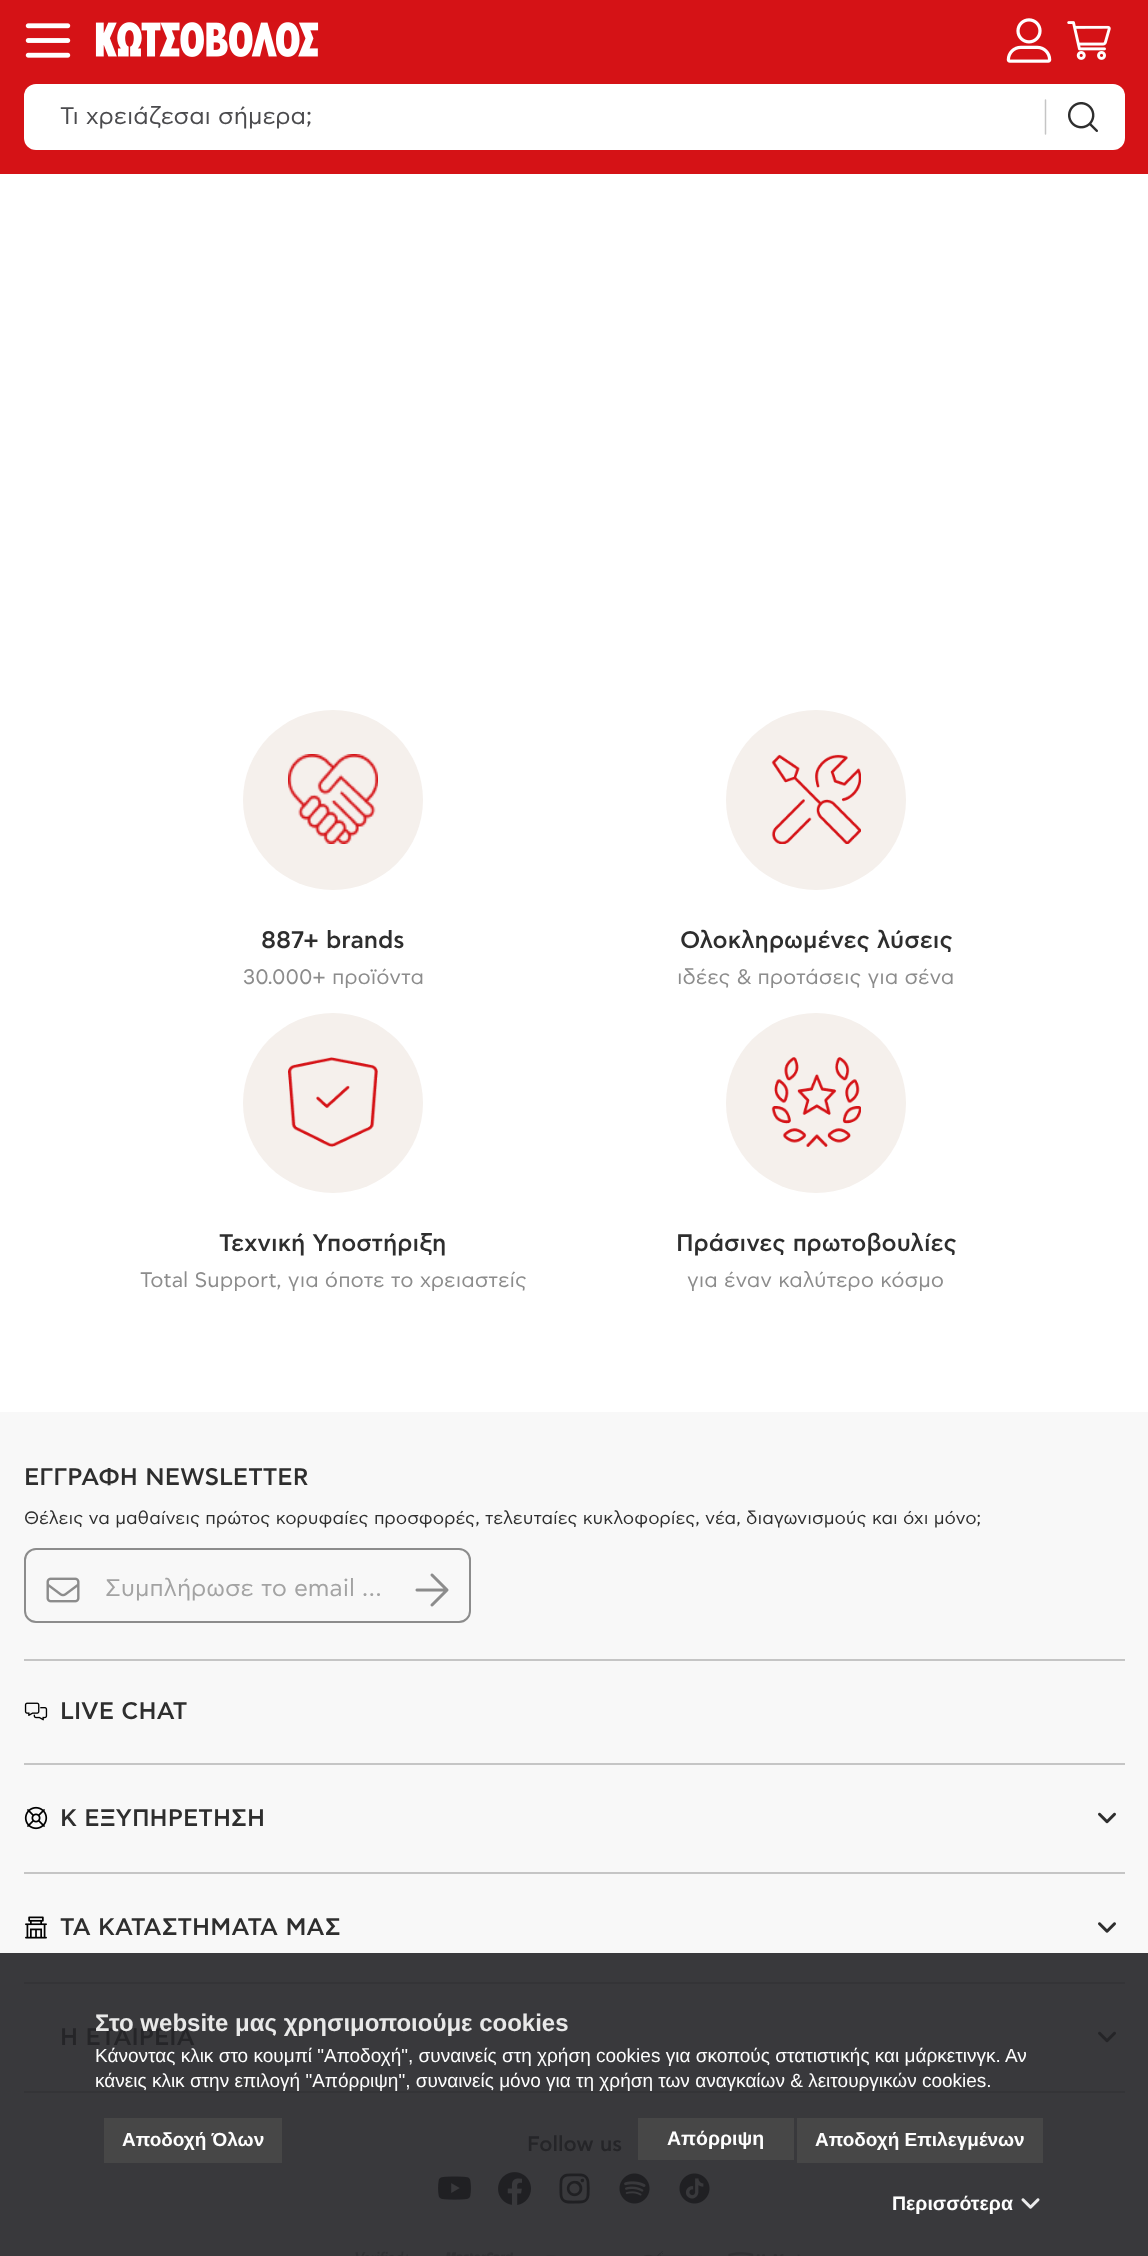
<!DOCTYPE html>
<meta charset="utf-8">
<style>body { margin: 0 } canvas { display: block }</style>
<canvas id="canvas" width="1148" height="2256"></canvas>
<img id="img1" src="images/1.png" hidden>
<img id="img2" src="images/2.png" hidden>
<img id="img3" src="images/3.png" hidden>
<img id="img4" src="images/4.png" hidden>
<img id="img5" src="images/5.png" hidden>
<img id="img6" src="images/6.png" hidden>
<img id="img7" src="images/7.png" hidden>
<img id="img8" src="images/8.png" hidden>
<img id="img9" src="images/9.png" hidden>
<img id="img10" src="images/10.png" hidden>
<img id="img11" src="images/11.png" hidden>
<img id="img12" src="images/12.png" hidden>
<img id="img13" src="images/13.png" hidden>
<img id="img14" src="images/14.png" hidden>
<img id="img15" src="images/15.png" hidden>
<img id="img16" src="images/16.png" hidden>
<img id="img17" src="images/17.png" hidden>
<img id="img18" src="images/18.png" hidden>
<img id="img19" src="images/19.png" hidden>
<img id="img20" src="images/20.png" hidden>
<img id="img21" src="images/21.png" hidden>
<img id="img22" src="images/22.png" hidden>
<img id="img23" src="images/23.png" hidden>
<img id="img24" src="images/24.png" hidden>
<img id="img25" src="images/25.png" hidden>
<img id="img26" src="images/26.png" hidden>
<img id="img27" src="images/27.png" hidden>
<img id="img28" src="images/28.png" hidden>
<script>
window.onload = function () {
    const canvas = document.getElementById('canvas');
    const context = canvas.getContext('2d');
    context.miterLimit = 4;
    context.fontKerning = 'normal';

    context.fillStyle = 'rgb(255, 255, 255)';
    context.fillRect(0, 0, 1148, 2256);
    context.fillStyle = 'rgb(213, 18, 22)';
    context.fillRect(0, 0, 1148, 174);
    context.drawImage(document.getElementById('img1'), 25, 23, 46, 35);
    context.drawImage(document.getElementById('img2'), 95, 22, 224, 35);
    context.drawImage(document.getElementById('img3'), 1006, 18, 46, 45);
    context.drawImage(document.getElementById('img4'), 1067, 21, 44, 39);
    context.fillStyle = 'rgb(255, 255, 255)';
    context.beginPath();
    context.roundRect(24, 84, 1101, 66, 12);
    context.fill();
    context.beginPath();
    context.moveTo(1045.5, 100);
    context.lineTo(1045.5, 134);
    context.strokeStyle = 'rgb(197, 197, 197)';
    context.lineWidth = 1.5;
    context.lineCap = 'round';
    context.stroke();
    context.drawImage(document.getElementById('img5'), 1068, 102, 30, 30);
    context.fillStyle = 'rgb(245, 240, 236)';
    context.beginPath();
    context.arc(333, 800, 90, 0, 2 * Math.PI);
    context.fill();
    context.drawImage(document.getElementById('img6'), 288, 754, 90, 90);
    context.beginPath();
    context.arc(816, 800, 90, 0, 2 * Math.PI);
    context.fill();
    context.drawImage(document.getElementById('img7'), 771, 754, 90, 90);
    context.beginPath();
    context.arc(333, 1103, 90, 0, 2 * Math.PI);
    context.fill();
    context.drawImage(document.getElementById('img8'), 288, 1057, 90, 90);
    context.beginPath();
    context.arc(816, 1103, 90, 0, 2 * Math.PI);
    context.fill();
    context.drawImage(document.getElementById('img9'), 771, 1057, 90, 90);
    context.fillStyle = 'rgb(248, 248, 248)';
    context.fillRect(0, 1412, 1148, 541);
    context.fillStyle = 'rgb(57, 57, 60)';
    context.fillRect(0, 1953, 1148, 303);
    context.drawImage(document.getElementById('img10'), 46, 1577, 34, 26);
    context.drawImage(document.getElementById('img11'), 415, 1573, 34, 34);
    context.beginPath();
    context.roundRect(25, 1549, 445, 73, 11);
    context.strokeStyle = 'rgb(140, 140, 140)';
    context.lineWidth = 2;
    context.stroke();
    context.fillStyle = 'rgb(197, 197, 197)';
    context.fillRect(24, 1659, 1101, 2);
    context.drawImage(document.getElementById('img12'), 24, 1702, 24, 19);
    context.fillRect(24, 1763, 1101, 2);
    context.drawImage(document.getElementById('img13'), 24, 1806, 24, 24);
    context.drawImage(document.getElementById('img14'), 1098, 1812, 18, 12);
    context.fillRect(24, 1872, 1101, 2);
    context.drawImage(document.getElementById('img15'), 25, 1916, 22, 23);
    context.drawImage(document.getElementById('img16'), 1098, 1922, 18, 11);
    context.fillStyle = 'rgb(52, 52, 55)';
    context.fillRect(24, 1982, 1101, 2);
    context.drawImage(document.getElementById('img17'), 1098, 2031, 18, 12);
    context.fillRect(24, 2091, 1101, 2);
    context.drawImage(document.getElementById('img18'), 438, 2176, 33, 24);
    context.drawImage(document.getElementById('img19'), 498, 2172, 33, 33);
    context.drawImage(document.getElementById('img20'), 559, 2173, 31, 31);
    context.drawImage(document.getElementById('img21'), 619, 2173, 31, 31);
    context.drawImage(document.getElementById('img22'), 679, 2173, 31, 31);
    context.drawImage(document.getElementById('img23'), 355, 2251, 53, 5);
    context.drawImage(document.getElementById('img24'), 446, 2252, 67, 4);
    context.drawImage(document.getElementById('img25'), 546, 2255, 10, 1);
    context.drawImage(document.getElementById('img26'), 644, 2251, 58, 5);
    context.drawImage(document.getElementById('img27'), 728, 2252, 73, 4);
    context.fillStyle = 'rgb(71, 71, 71)';
    context.fillRect(104, 2118, 178, 45);
    context.fillRect(638, 2118, 156, 42);
    context.fillRect(797, 2118, 246, 45);
    context.drawImage(document.getElementById('img28'), 1021, 2198, 19, 11);
    context.font = '24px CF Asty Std';
    context.fillStyle = 'rgb(75, 75, 78)';
    context.fillText('Τι χρειάζεσαι σήμερα;', 60, 124);
    context.font = '500 24px CF Asty Std';
    context.fillStyle = 'rgb(46, 46, 46)';
    context.fillText('887+ brands', 261, 948);
    context.font = '21px CF Asty Std';
    context.fillStyle = 'rgb(140, 140, 140)';
    context.fillText('30.000+ προϊόντα', 243, 984);
    context.font = '500 24px CF Asty Std';
    context.fillStyle = 'rgb(46, 46, 46)';
    context.fillText('Ολοκληρωμένες λύσεις', 680, 948);
    context.font = '21px CF Asty Std';
    context.fillStyle = 'rgb(140, 140, 140)';
    context.fillText('ιδέες & προτάσεις για σένα', 677, 984);
    context.font = '500 24px CF Asty Std';
    context.fillStyle = 'rgb(46, 46, 46)';
    context.fillText('Τεχνική Υποστήριξη', 219, 1251);
    context.font = '21px CF Asty Std';
    context.fillStyle = 'rgb(140, 140, 140)';
    context.fillText('Total Support, για όποτε το χρειαστείς', 140, 1287);
    context.font = '500 24px CF Asty Std';
    context.fillStyle = 'rgb(46, 46, 46)';
    context.fillText('Πράσινες πρωτοβουλίες', 676, 1251);
    context.font = '21px CF Asty Std';
    context.fillStyle = 'rgb(140, 140, 140)';
    context.fillText('για έναν καλύτερο κόσμο', 687, 1287);
    context.font = '500 24px CF Asty Std';
    context.fillStyle = 'rgb(46, 46, 46)';
    context.fillText('ΕΓΓΡΑΦΗ NEWSLETTER', 24, 1485);
    context.font = '18px CF Asty Std';
    context.fillText('Θέλεις να μαθαίνεις πρώτος κορυφαίες προσφορές, τελευταίες κυκλοφορίες, νέα, διαγωνισμούς και όχι μόνο;', 24, 1524);
    context.font = '24px CF Asty Std';
    context.fillStyle = 'rgb(163, 163, 163)';
    context.fillText('Συμπλήρωσε το email …', 105, 1596);
    context.font = '500 24px CF Asty Std';
    context.fillStyle = 'rgb(46, 46, 46)';
    context.fillText('LIVE CHAT', 60, 1719);
    context.fillText('K ΕΞΥΠΗΡΕΤΗΣΗ', 60, 1826);
    context.fillText('ΤΑ ΚΑΤΑΣΤΗΜΑΤΑ ΜΑΣ', 60, 1935);
    context.fillStyle = 'rgb(37, 37, 40)';
    context.fillText('Η ΕΤΑΙΡΕΙΑ', 60, 2045);
    context.font = '500 21px CF Asty Std';
    context.fillText('Follow us', 527, 2151);
    context.font = 'bold 24px Liberation Sans';
    context.fillStyle = 'rgb(232, 232, 232)';
    context.fillText('Στο website μας χρησιμοποιούμε cookies', 95, 2031);
    context.font = '19px Liberation Sans';
    context.fillStyle = 'rgb(254, 254, 254)';
    context.fillText('Κάνοντας κλικ στο κουμπί "Αποδοχή", συναινείς στη χρήση cookies για σκοπούς στατιστικής και μάρκετινγκ. Αν', 95, 2062);
    context.fillText('κάνεις κλικ στην επιλογή "Απόρριψη", συναινείς μόνο για τη χρήση των αναγκαίων & λειτουργικών cookies.', 95, 2087);
    context.font = 'bold 19px Liberation Sans';
    context.fillText('Αποδοχή Όλων', 122, 2146);
    context.font = 'bold 19.5px Liberation Sans';
    context.fillText('Απόρριψη', 667, 2145);
    context.font = 'bold 19px Liberation Sans';
    context.fillText('Αποδοχή Επιλεγμένων', 815, 2146);
    context.font = 'bold 19.5px Liberation Sans';
    context.fillText('Περισσότερα', 892, 2210);
};
</script>
